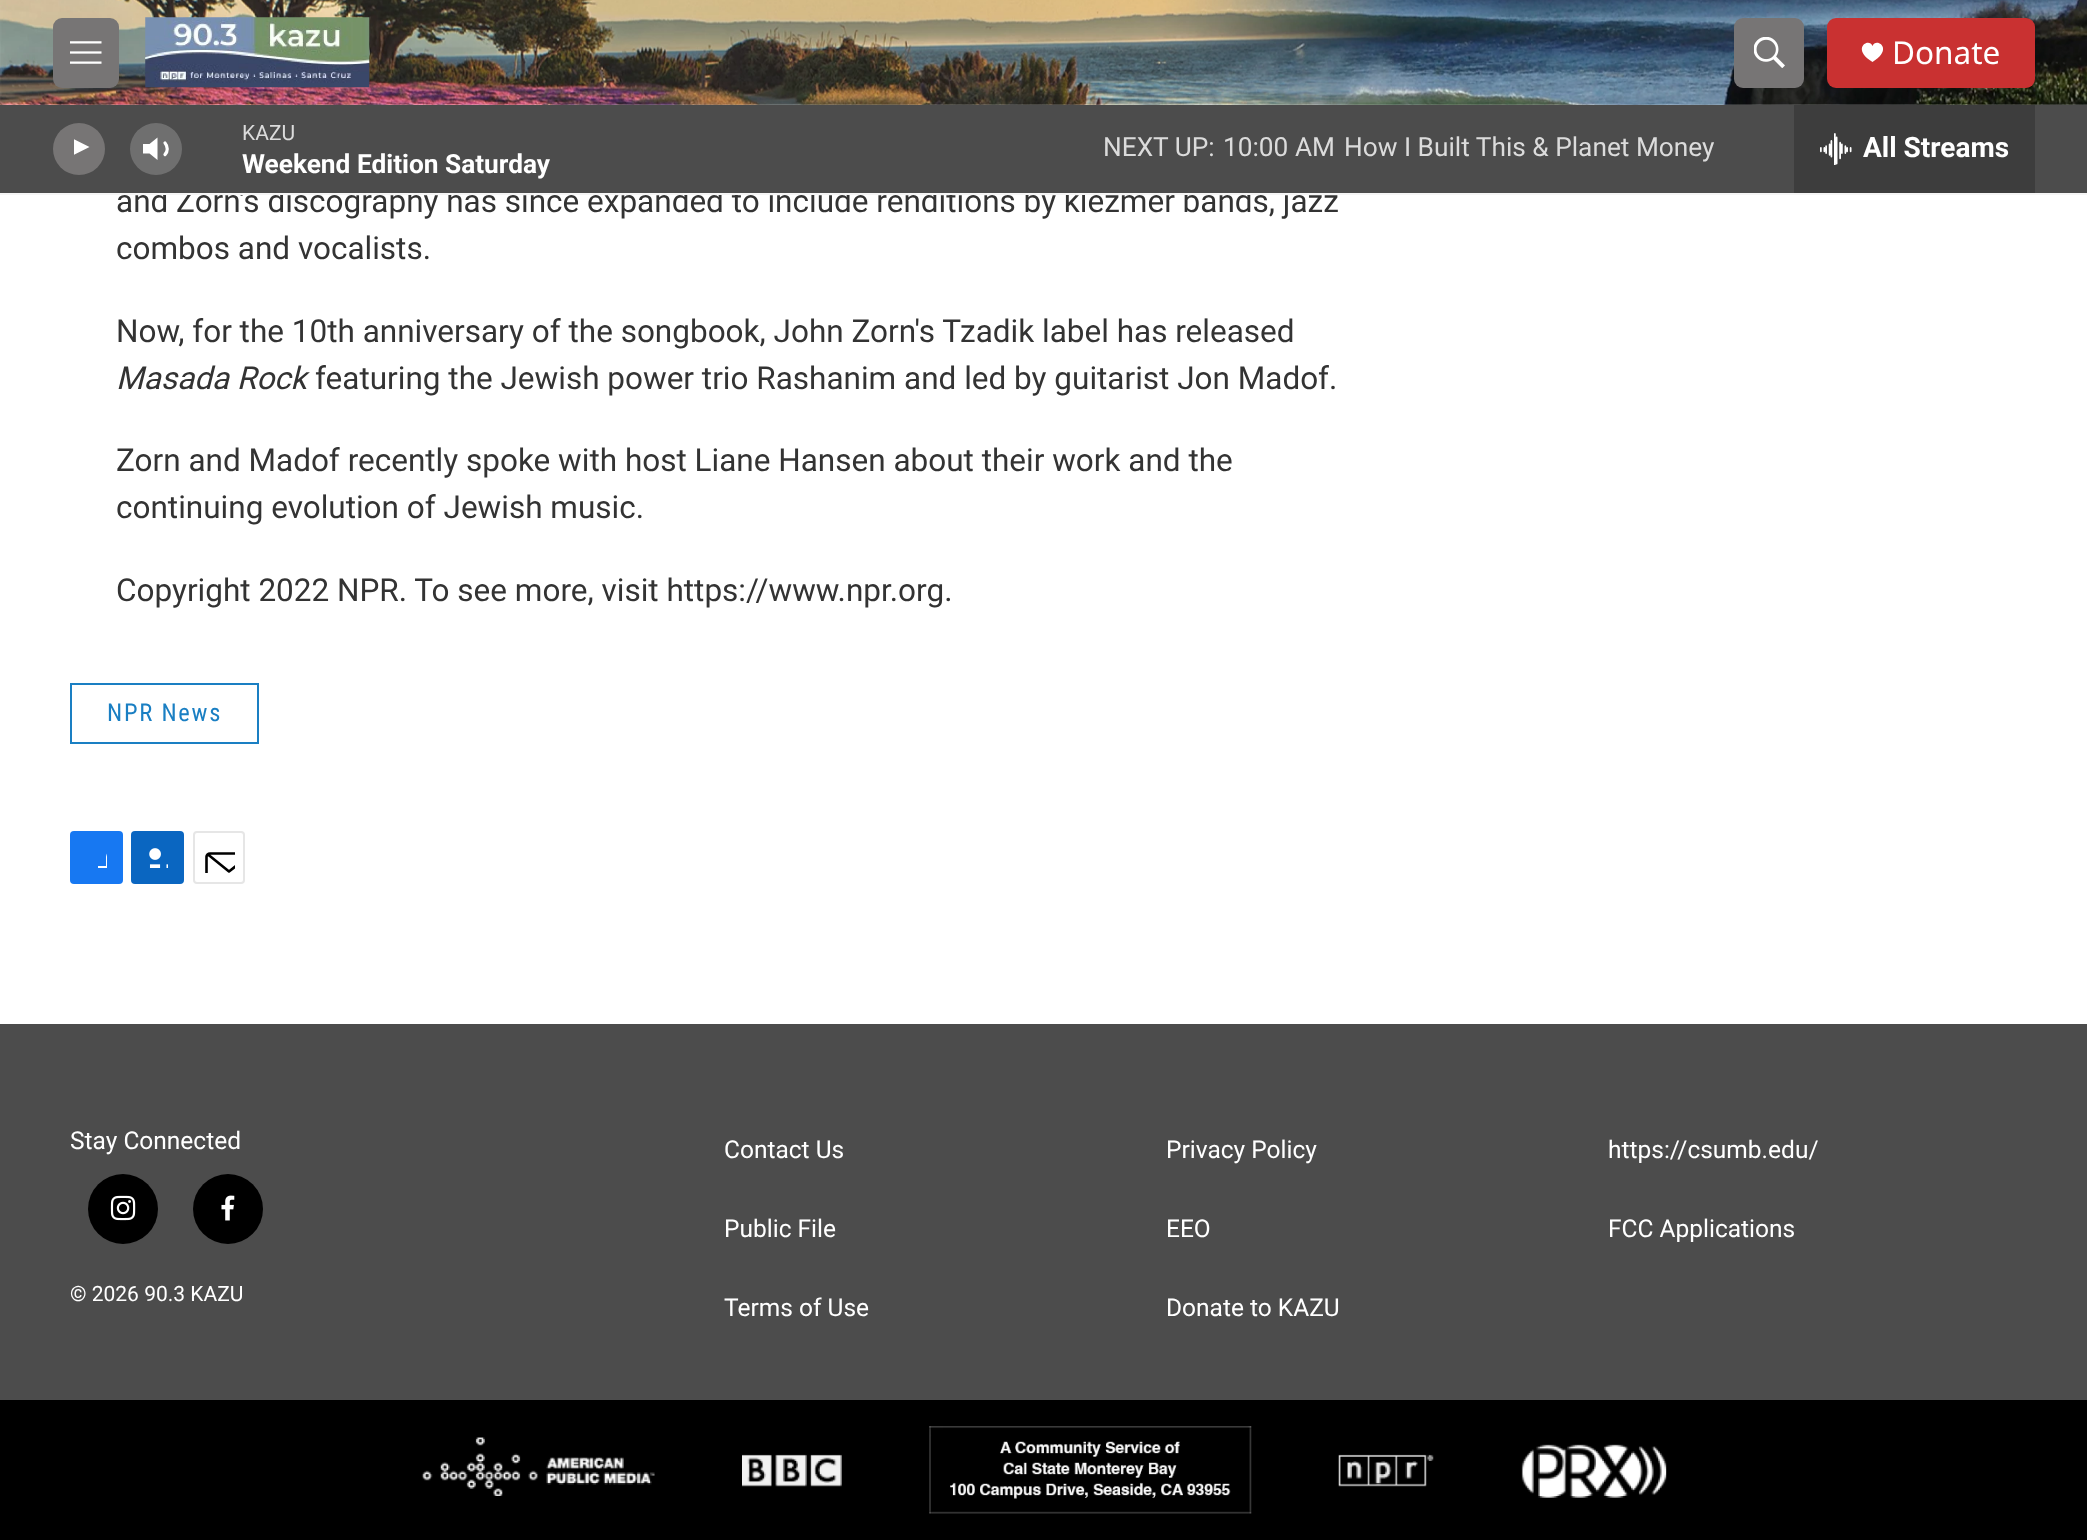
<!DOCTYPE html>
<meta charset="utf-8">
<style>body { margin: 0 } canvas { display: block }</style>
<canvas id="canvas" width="2087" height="1540"></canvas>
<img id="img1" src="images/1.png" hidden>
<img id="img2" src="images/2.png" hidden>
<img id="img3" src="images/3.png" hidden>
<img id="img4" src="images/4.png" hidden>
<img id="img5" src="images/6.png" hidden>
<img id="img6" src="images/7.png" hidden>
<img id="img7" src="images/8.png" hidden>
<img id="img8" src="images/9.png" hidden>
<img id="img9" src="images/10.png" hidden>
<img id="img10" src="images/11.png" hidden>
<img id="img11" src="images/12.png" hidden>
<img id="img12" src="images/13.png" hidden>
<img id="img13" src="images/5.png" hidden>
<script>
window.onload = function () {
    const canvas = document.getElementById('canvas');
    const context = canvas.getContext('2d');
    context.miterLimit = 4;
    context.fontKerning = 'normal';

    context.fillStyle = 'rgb(255, 255, 255)';
    context.fillRect(0, 0, 2087, 1540);
    context.drawImage(document.getElementById('img1'), 0, 0, 2087, 105);
    context.fillStyle = 'rgb(119, 117, 117)';
    context.beginPath();
    context.roundRect(53, 18, 66, 70, 9);
    context.fill();
    context.drawImage(document.getElementById('img2'), 70, 41, 32, 23);
    context.drawImage(document.getElementById('img3'), 145, 17, 225, 71);
    context.beginPath();
    context.roundRect(1734, 18, 70, 70, 9);
    context.fill();
    context.drawImage(document.getElementById('img4'), 1754, 37, 31, 31);
    context.fillStyle = 'rgb(201, 49, 49)';
    context.beginPath();
    context.roundRect(1827, 18, 208, 70, 9);
    context.fill();
    context.fillStyle = 'rgb(255, 255, 255)';
    context.beginPath();
    context.moveTo(1872.5, 46);
    context.bezierCurveTo(1869, 37, 1850.5, 48.5, 1872.5, 62);
    context.bezierCurveTo(1894.5, 48.5, 1876, 37, 1872.5, 46);
    context.closePath();
    context.fill();
    context.strokeStyle = 'rgb(26, 127, 195)';
    context.lineWidth = 2;
    context.strokeRect(71, 684, 187, 59);
    context.fillStyle = 'rgb(23, 120, 242)';
    context.beginPath();
    context.roundRect(70, 831, 53, 53, 4);
    context.fill();
    context.save();
    context.beginPath();
    context.rect(86, 847, 21, 21);
    context.clip();
    context.fillStyle = 'rgb(255, 255, 255)';
    context.beginPath();
    context.moveTo(115, 884);
    context.lineTo(106, 884);
    context.lineTo(106, 875);
    context.lineTo(98, 875);
    context.lineTo(98, 866);
    context.lineTo(106, 866);
    context.lineTo(106, 857);
    context.bezierCurveTo(107, 848.5, 115.5, 847, 123, 848);
    context.lineTo(123, 856);
    context.bezierCurveTo(113.5, 856, 115, 858.5, 115, 866);
    context.lineTo(123, 866);
    context.lineTo(122, 875);
    context.lineTo(115, 875);
    context.closePath();
    context.fill();
    context.restore();
    context.fillStyle = 'rgb(10, 102, 193)';
    context.beginPath();
    context.roundRect(131, 831, 53, 53, 4);
    context.fill();
    context.drawImage(document.getElementById('img5'), 149, 848, 19, 20);
    context.beginPath();
    context.roundRect(194, 832, 50, 51, 3);
    context.strokeStyle = 'rgb(230, 230, 230)';
    context.stroke();
    context.save();
    context.beginPath();
    context.rect(203, 842, 32, 31);
    context.clip();
    context.beginPath();
    context.moveTo(252, 880);
    context.bezierCurveTo(252, 882, 250.5, 883.5, 248.5, 883.5);
    context.lineTo(210, 883.5);
    context.bezierCurveTo(208, 883.5, 206.5, 882, 206.5, 880);
    context.lineTo(206.5, 856.5);
    context.bezierCurveTo(206.5, 855, 208, 853.5, 210, 853.5);
    context.lineTo(248.5, 853.5);
    context.bezierCurveTo(250.5, 853.5, 252, 855, 252, 856.5);
    context.closePath();
    context.moveTo(250.5, 854.5);
    context.lineTo(229, 871.5);
    context.lineTo(208, 854.5);
    context.strokeStyle = 'rgb(0, 0, 0)';
    context.lineWidth = 2.6;
    context.lineCap = 'round';
    context.lineJoin = 'round';
    context.stroke();
    context.restore();
    context.fillStyle = 'rgb(76, 76, 76)';
    context.fillRect(0, 1024, 2087, 376);
    context.fillStyle = 'rgb(0, 0, 0)';
    context.beginPath();
    context.arc(123, 1209, 35, 0, 2 * Math.PI);
    context.fill();
    context.drawImage(document.getElementById('img6'), 110, 1195, 26, 26);
    context.beginPath();
    context.arc(228, 1209, 35, 0, 2 * Math.PI);
    context.fill();
    context.drawImage(document.getElementById('img7'), 221, 1195, 14, 26);
    context.fillRect(0, 1400, 2087, 140);
    context.drawImage(document.getElementById('img8'), 421, 1437, 234, 59);
    context.drawImage(document.getElementById('img9'), 742, 1454, 100, 33);
    context.drawImage(document.getElementById('img10'), 929, 1426, 323, 88);
    context.drawImage(document.getElementById('img11'), 1338, 1454, 96, 33);
    context.drawImage(document.getElementById('img12'), 1521, 1444, 146, 54);
    context.font = '31.5px Noto Sans';
    context.fillStyle = 'rgb(255, 255, 255)';
    context.fillText('Donate', 1892, 64);
    context.font = '31.5px Roboto';
    context.fillStyle = 'rgb(51, 51, 51)';
    context.fillText('and Zorn\'s discography has since expanded to include renditions by klezmer bands, jazz', 116, 212);
    context.fillStyle = 'rgb(76, 76, 76)';
    context.fillRect(0, 105, 2087, 88);
    context.font = '26.25px Roboto';
    context.fillStyle = 'rgb(219, 219, 219)';
    context.fillText('How I Built This & Planet Money', 1344, 156);
    context.fillText('10:00 AM', 1223, 156);
    context.fillText('NEXT UP:', 1103, 156);
    context.font = '21px Roboto';
    context.fillText('KAZU', 242, 140);
    context.beginPath();
    context.moveTo(165, 143);
    context.bezierCurveTo(168, 146.5, 168, 151.5, 165, 154.5);
    context.strokeStyle = 'rgb(255, 255, 255)';
    context.lineWidth = 3.2;
    context.lineCap = 'round';
    context.lineJoin = 'round';
    context.stroke();
    context.fillStyle = 'rgb(255, 255, 255)';
    context.beginPath();
    context.moveTo(157.5, 137.5);
    context.lineTo(149.5, 144);
    context.lineTo(143, 144);
    context.lineTo(143, 153.5);
    context.lineTo(149.5, 153.5);
    context.lineTo(157.5, 160);
    context.closePath();
    context.fill();
    context.fillStyle = 'rgba(255, 255, 255, 0.2)';
    context.beginPath();
    context.arc(156, 149, 26, 0, 2 * Math.PI);
    context.fill();
    context.fillStyle = 'rgb(119, 117, 117)';
    context.beginPath();
    context.arc(79, 149, 26, 0, 2 * Math.PI);
    context.fill();
    context.save();
    context.beginPath();
    context.rect(74, 137, 20, 26);
    context.clip();
    context.fillStyle = 'rgb(255, 255, 255)';
    context.beginPath();
    context.moveTo(72.5, 138.5);
    context.lineTo(89.5, 147);
    context.lineTo(72.5, 155.5);
    context.closePath();
    context.fill();
    context.restore();
    context.fillStyle = 'rgb(61, 61, 61)';
    context.fillRect(1794, 105, 241, 88);
    context.drawImage(document.getElementById('img13'), 1820, 133, 32, 32);
    context.font = 'bold 26.25px Roboto';
    context.fillStyle = 'rgb(255, 255, 255)';
    context.fillText('Weekend Edition Saturday', 242, 173);
    context.font = 'bold 28px Roboto';
    context.fillText('All Streams', 1863, 157);
    context.fillStyle = 'rgb(245, 245, 245)';
    context.fillRect(0, 193, 2087, 2);
    context.font = '31.5px Roboto';
    context.fillStyle = 'rgb(51, 51, 51)';
    context.fillText('combos and vocalists.', 116, 259);
    context.fillText('Now, for the 10th anniversary of the songbook, John Zorn\'s Tzadik label has released', 116, 342);
    context.font = 'italic 31.5px Roboto';
    context.fillText('Masada Rock', 116, 389);
    context.font = '31.5px Roboto';
    context.fillText('featuring the Jewish power trio Rashanim and led by guitarist Jon Madof.', 315, 389);
    context.fillText('Zorn and Madof recently spoke with host Liane Hansen about their work and the', 116, 471);
    context.fillText('continuing evolution of Jewish music.', 116, 518);
    context.fillText('Copyright 2022 NPR. To see more, visit https://www.npr.org.', 116, 601);
    context.letterSpacing = '1.75px';
    context.font = '24.5px Roboto Condensed';
    context.fillStyle = 'rgb(26, 127, 195)';
    context.fillText('NPR News', 107, 721);
    context.letterSpacing = '0px';
    context.font = '24.5px Roboto';
    context.fillStyle = 'rgb(255, 255, 255)';
    context.fillText('Stay Connected', 70, 1149);
    context.font = '21px Roboto';
    context.fillText('© 2026 90.3 KAZU', 70, 1301);
    context.font = '24.5px Roboto';
    context.fillText('Contact Us', 724, 1158);
    context.fillText('Privacy Policy', 1166, 1158);
    context.fillText('https://csumb.edu/', 1608, 1158);
    context.fillText('Public File', 724, 1237);
    context.fillText('EEO', 1166, 1237);
    context.fillText('FCC Applications', 1608, 1237);
    context.fillText('Terms of Use', 724, 1316);
    context.fillText('Donate to KAZU', 1166, 1316);
};
</script>
